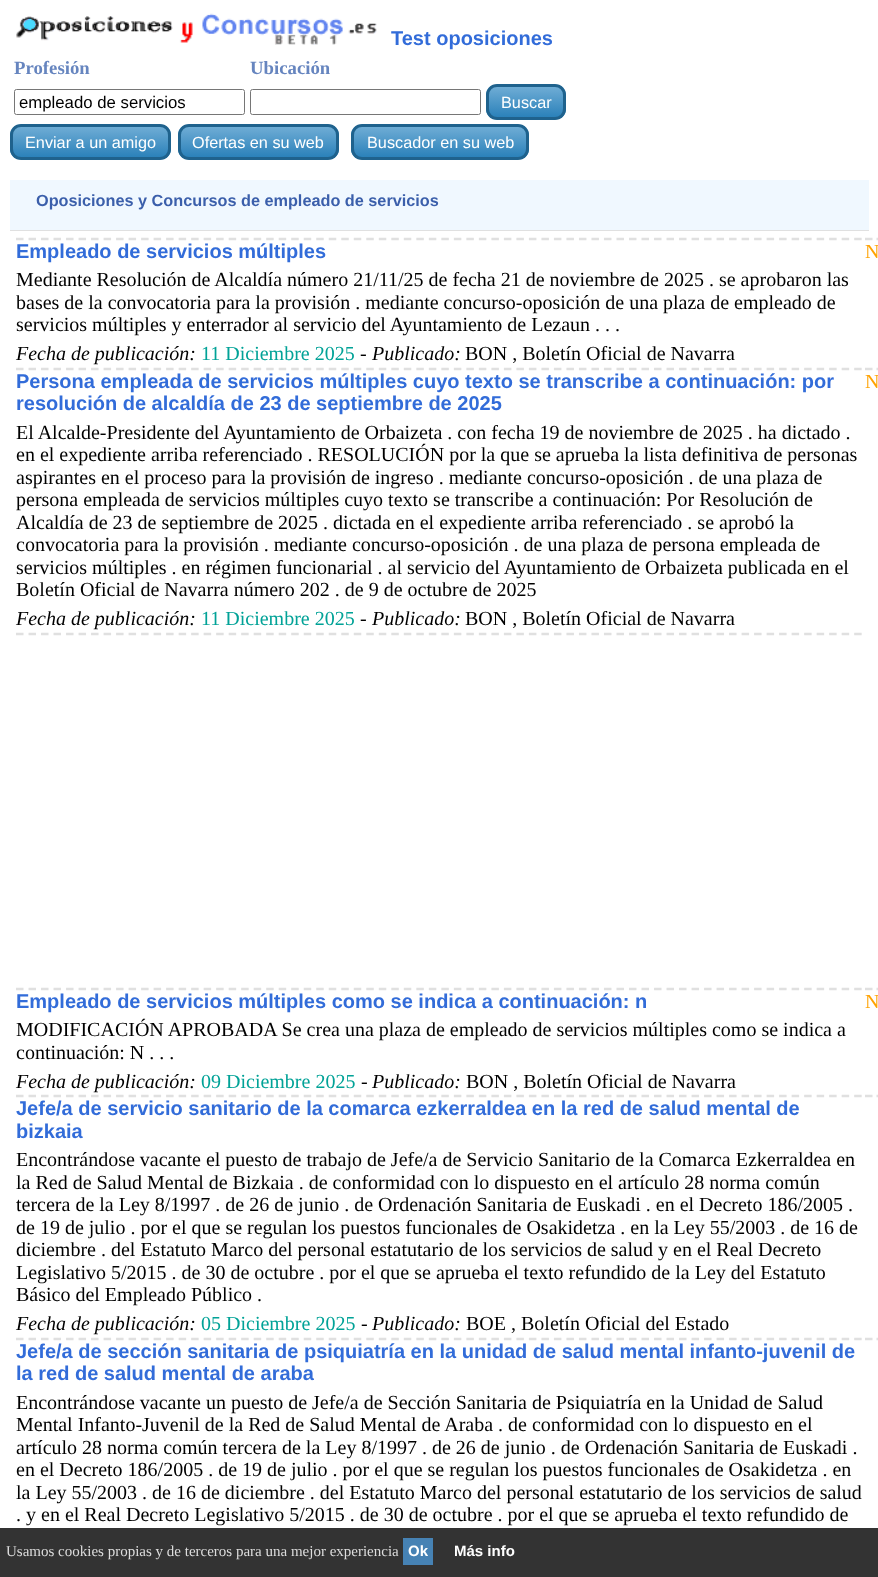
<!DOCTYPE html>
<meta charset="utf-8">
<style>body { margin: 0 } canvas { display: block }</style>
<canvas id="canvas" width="878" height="1577"></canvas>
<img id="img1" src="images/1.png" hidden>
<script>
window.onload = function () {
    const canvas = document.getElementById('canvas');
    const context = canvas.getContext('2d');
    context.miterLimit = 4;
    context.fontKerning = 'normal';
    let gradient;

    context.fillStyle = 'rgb(255, 255, 255)';
    context.fillRect(0, 0, 878, 1577);
    context.drawImage(document.getElementById('img1'), 16, 13, 361, 32);
    context.beginPath();
    context.roundRect(14.5, 89.5, 230, 25, 2);
    context.strokeStyle = 'rgb(118, 118, 118)';
    context.stroke();
    context.beginPath();
    context.roundRect(250.5, 89.5, 230, 25, 2);
    context.stroke();
    context.save();
    context.beginPath();
    context.roundRect(486, 84, 80, 36, 11);
    context.clip();
    gradient = context.createLinearGradient(526, 86, 526, 118);
    gradient.addColorStop(0, 'rgb(113, 174, 214)');
    gradient.addColorStop(1, 'rgb(41, 128, 185)');
    context.fillStyle = gradient;
    context.fillRect(486, 86, 80, 32);
    context.restore();
    context.beginPath();
    context.roundRect(487.5, 85.5, 77, 33, 9.5);
    context.strokeStyle = 'rgb(31, 98, 141)';
    context.lineWidth = 3;
    context.stroke();
    context.save();
    context.beginPath();
    context.roundRect(10, 124, 161, 36, 11);
    context.clip();
    gradient = context.createLinearGradient(91, 126, 91, 158);
    gradient.addColorStop(0, 'rgb(113, 174, 214)');
    gradient.addColorStop(1, 'rgb(41, 128, 185)');
    context.fillStyle = gradient;
    context.fillRect(10, 126, 161, 32);
    context.restore();
    context.beginPath();
    context.roundRect(11.5, 125.5, 158, 33, 9.5);
    context.stroke();
    context.save();
    context.beginPath();
    context.roundRect(178, 124, 161, 36, 11);
    context.clip();
    gradient = context.createLinearGradient(258, 126, 258, 158);
    gradient.addColorStop(0, 'rgb(113, 174, 214)');
    gradient.addColorStop(1, 'rgb(41, 128, 185)');
    context.fillStyle = gradient;
    context.fillRect(178, 126, 161, 32);
    context.restore();
    context.beginPath();
    context.roundRect(179.5, 125.5, 158, 33, 9.5);
    context.stroke();
    context.save();
    context.beginPath();
    context.roundRect(351, 124, 178, 36, 11);
    context.clip();
    gradient = context.createLinearGradient(440, 126, 440, 158);
    gradient.addColorStop(0, 'rgb(113, 174, 214)');
    gradient.addColorStop(1, 'rgb(41, 128, 185)');
    context.fillStyle = gradient;
    context.fillRect(351, 126, 178, 32);
    context.restore();
    context.beginPath();
    context.roundRect(352.5, 125.5, 175, 33, 9.5);
    context.stroke();
    context.fillStyle = 'rgb(240, 248, 255)';
    context.fillRect(10, 180, 859, 50);
    context.fillStyle = 'rgb(224, 224, 224)';
    context.fillRect(10, 230, 859, 1);
    context.beginPath();
    context.moveTo(16, 239);
    context.lineTo(862.5, 239);
    context.strokeStyle = 'rgb(224, 224, 224)';
    context.lineWidth = 2.5;
    context.setLineDash([7.5, 5.01]);
    context.stroke();
    context.beginPath();
    context.moveTo(865, 239);
    context.lineTo(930, 239);
    context.setLineDash([7.5, 4]);
    context.stroke();
    context.beginPath();
    context.moveTo(16, 369);
    context.lineTo(862.5, 369);
    context.setLineDash([7.5, 5.01]);
    context.stroke();
    context.beginPath();
    context.moveTo(865, 369);
    context.lineTo(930, 369);
    context.setLineDash([7.5, 4]);
    context.stroke();
    context.beginPath();
    context.moveTo(16, 634);
    context.lineTo(862.5, 634);
    context.setLineDash([7.5, 5.01]);
    context.stroke();
    context.beginPath();
    context.moveTo(16, 989);
    context.lineTo(862.5, 989);
    context.stroke();
    context.beginPath();
    context.moveTo(865, 989);
    context.lineTo(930, 989);
    context.setLineDash([7.5, 4]);
    context.stroke();
    context.beginPath();
    context.moveTo(865, 1096);
    context.lineTo(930, 1096);
    context.stroke();
    context.beginPath();
    context.moveTo(16, 1096);
    context.lineTo(862.5, 1096);
    context.setLineDash([7.5, 5.01]);
    context.stroke();
    context.beginPath();
    context.moveTo(865, 1339);
    context.lineTo(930, 1339);
    context.setLineDash([7.5, 4]);
    context.stroke();
    context.beginPath();
    context.moveTo(16, 1339);
    context.lineTo(862.5, 1339);
    context.setLineDash([7.5, 5.01]);
    context.stroke();
    context.fillStyle = 'rgb(51, 51, 51)';
    context.fillRect(0, 1528, 878, 49);
    context.fillStyle = 'rgb(70, 130, 180)';
    context.fillRect(403, 1538, 30, 27);
    context.font = 'bold 20px Liberation Sans';
    context.fillStyle = 'rgb(50, 108, 217)';
    context.fillText('Test oposiciones', 391, 45);
    context.font = 'bold 18.75px Liberation Serif';
    context.fillStyle = 'rgb(102, 133, 191)';
    context.fillText('Profesión', 14, 74);
    context.fillText('Ubicación', 250, 74);
    context.font = '16.75px Liberation Sans';
    context.fillStyle = 'rgb(0, 0, 0)';
    context.fillText('empleado de servicios', 19, 108);
    context.font = '16.25px Liberation Sans';
    context.fillStyle = 'rgb(255, 255, 255)';
    context.fillText('Buscar', 501, 108);
    context.fillText('Enviar a un amigo', 25, 148);
    context.fillText('Ofertas en su web', 192, 148);
    context.fillText('Buscador en su web', 367, 148);
    context.font = 'bold 16.25px Liberation Sans';
    context.fillStyle = 'rgb(59, 95, 171)';
    context.fillText('Oposiciones y Concursos de empleado de servicios', 36, 206);
    context.font = 'bold 20px Liberation Sans';
    context.fillStyle = 'rgb(50, 108, 217)';
    context.fillText('Empleado de servicios múltiples', 16, 258);
    context.font = '20px Liberation Serif';
    context.fillStyle = 'rgb(0, 0, 0)';
    context.fillText('Mediante Resolución de Alcaldía número 21/11/25 de fecha 21 de noviembre de 2025 . se aprobaron las', 16, 286);
    context.fillText('bases de la convocatoria para la provisión . mediante concurso-oposición de una plaza de empleado de', 16, 309);
    context.fillText('servicios múltiples y enterrador al servicio del Ayuntamiento de Lezaun . . .', 16, 331);
    context.font = 'italic 20px Liberation Serif';
    context.fillText('Fecha de publicación:', 16, 360);
    context.font = '20px Liberation Serif';
    context.fillStyle = 'rgb(1, 162, 151)';
    context.fillText('11 Diciembre 2025', 201, 360);
    context.fillStyle = 'rgb(0, 0, 0)';
    context.fillText('-', 360, 360);
    context.font = 'italic 20px Liberation Serif';
    context.fillText('Publicado:', 372, 360);
    context.font = '20px Liberation Serif';
    context.fillText('BON , Boletín Oficial de Navarra', 465, 360);
    context.fillStyle = 'rgb(255, 162, 1)';
    context.fillText('N', 865, 258);
    context.font = 'bold 20px Liberation Sans';
    context.fillStyle = 'rgb(50, 108, 217)';
    context.fillText('Persona empleada de servicios múltiples cuyo texto se transcribe a continuación: por', 16, 388);
    context.fillText('resolución de alcaldía de 23 de septiembre de 2025', 16, 410);
    context.font = '20px Liberation Serif';
    context.fillStyle = 'rgb(0, 0, 0)';
    context.fillText('El Alcalde-Presidente del Ayuntamiento de Orbaizeta . con fecha 19 de noviembre de 2025 . ha dictado .', 16, 439);
    context.fillText('en el expediente arriba referenciado . RESOLUCIÓN por la que se aprueba la lista definitiva de personas', 16, 461);
    context.fillText('aspirantes en el proceso para la provisión de ingreso . mediante concurso-oposición . de una plaza de', 16, 484);
    context.fillText('persona empleada de servicios múltiples cuyo texto se transcribe a continuación: Por Resolución de', 16, 506);
    context.fillText('Alcaldía de 23 de septiembre de 2025 . dictada en el expediente arriba referenciado . se aprobó la', 16, 529);
    context.fillText('convocatoria para la provisión . mediante concurso-oposición . de una plaza de persona empleada de', 16, 551);
    context.fillText('servicios múltiples . en régimen funcionarial . al servicio del Ayuntamiento de Orbaizeta publicada en el', 16, 574);
    context.fillText('Boletín Oficial de Navarra número 202 . de 9 de octubre de 2025', 16, 596);
    context.font = 'italic 20px Liberation Serif';
    context.fillText('Fecha de publicación:', 16, 625);
    context.font = '20px Liberation Serif';
    context.fillStyle = 'rgb(1, 162, 151)';
    context.fillText('11 Diciembre 2025', 201, 625);
    context.fillStyle = 'rgb(0, 0, 0)';
    context.fillText('-', 360, 625);
    context.font = 'italic 20px Liberation Serif';
    context.fillText('Publicado:', 372, 625);
    context.font = '20px Liberation Serif';
    context.fillText('BON , Boletín Oficial de Navarra', 465, 625);
    context.fillStyle = 'rgb(255, 162, 1)';
    context.fillText('N', 865, 388);
    context.font = 'bold 20px Liberation Sans';
    context.fillStyle = 'rgb(50, 108, 217)';
    context.fillText('Empleado de servicios múltiples como se indica a continuación: n', 16, 1008);
    context.font = '20px Liberation Serif';
    context.fillStyle = 'rgb(0, 0, 0)';
    context.fillText('MODIFICACIÓN APROBADA Se crea una plaza de empleado de servicios múltiples como se indica a', 16, 1036);
    context.fillText('continuación: N . . .', 16, 1059);
    context.font = 'italic 20px Liberation Serif';
    context.fillText('Fecha de publicación:', 16, 1088);
    context.font = '20px Liberation Serif';
    context.fillStyle = 'rgb(1, 162, 151)';
    context.fillText('09 Diciembre 2025', 201, 1088);
    context.fillStyle = 'rgb(0, 0, 0)';
    context.fillText('-', 361, 1088);
    context.font = 'italic 20px Liberation Serif';
    context.fillText('Publicado:', 372, 1088);
    context.font = '20px Liberation Serif';
    context.fillText('BON , Boletín Oficial de Navarra', 466, 1088);
    context.fillStyle = 'rgb(255, 162, 1)';
    context.fillText('N', 865, 1008);
    context.font = 'bold 20px Liberation Sans';
    context.fillStyle = 'rgb(50, 108, 217)';
    context.fillText('Jefe/a de servicio sanitario de la comarca ezkerraldea en la red de salud mental de', 16, 1115);
    context.fillText('bizkaia', 16, 1138);
    context.font = '20px Liberation Serif';
    context.fillStyle = 'rgb(0, 0, 0)';
    context.fillText('Encontrándose vacante el puesto de trabajo de Jefe/a de Servicio Sanitario de la Comarca Ezkerraldea en', 16, 1166);
    context.fillText('la Red de Salud Mental de Bizkaia . de conformidad con lo dispuesto en el artículo 28 norma común', 16, 1189);
    context.fillText('tercera de la Ley 8/1997 . de 26 de junio . de Ordenación Sanitaria de Euskadi . en el Decreto 186/2005 .', 16, 1211);
    context.fillText('de 19 de julio . por el que se regulan los puestos funcionales de Osakidetza . en la Ley 55/2003 . de 16 de', 16, 1234);
    context.fillText('diciembre . del Estatuto Marco del personal estatutario de los servicios de salud y en el Real Decreto', 16, 1256);
    context.fillText('Legislativo 5/2015 . de 30 de octubre . por el que se aprueba el texto refundido de la Ley del Estatuto', 16, 1279);
    context.fillText('Básico del Empleado Público .', 16, 1301);
    context.font = 'italic 20px Liberation Serif';
    context.fillText('Fecha de publicación:', 16, 1330);
    context.font = '20px Liberation Serif';
    context.fillStyle = 'rgb(1, 162, 151)';
    context.fillText('05 Diciembre 2025', 201, 1330);
    context.fillStyle = 'rgb(0, 0, 0)';
    context.fillText('-', 361, 1330);
    context.font = 'italic 20px Liberation Serif';
    context.fillText('Publicado:', 372, 1330);
    context.font = '20px Liberation Serif';
    context.fillText('BOE , Boletín Oficial del Estado', 466, 1330);
    context.font = 'bold 20px Liberation Sans';
    context.fillStyle = 'rgb(50, 108, 217)';
    context.fillText('Jefe/a de sección sanitaria de psiquiatría en la unidad de salud mental infanto-juvenil de', 16, 1358);
    context.fillText('la red de salud mental de araba', 16, 1380);
    context.font = '20px Liberation Serif';
    context.fillStyle = 'rgb(0, 0, 0)';
    context.fillText('Encontrándose vacante un puesto de Jefe/a de Sección Sanitaria de Psiquiatría en la Unidad de Salud', 16, 1409);
    context.fillText('Mental Infanto-Juvenil de la Red de Salud Mental de Araba . de conformidad con lo dispuesto en el', 16, 1431);
    context.fillText('artículo 28 norma común tercera de la Ley 8/1997 . de 26 de junio . de Ordenación Sanitaria de Euskadi .', 16, 1454);
    context.fillText('en el Decreto 186/2005 . de 19 de julio . por el que se regulan los puestos funcionales de Osakidetza . en', 16, 1476);
    context.fillText('la Ley 55/2003 . de 16 de diciembre . del Estatuto Marco del personal estatutario de los servicios de salud', 16, 1499);
    context.fillText('. y en el Real Decreto Legislativo 5/2015 . de 30 de octubre . por el que se aprueba el texto refundido de', 16, 1521);
    context.font = '15px Liberation Serif';
    context.fillStyle = 'rgb(221, 221, 221)';
    context.fillText('Usamos cookies propias y de terceros para una mejor experiencia', 6, 1556);
    context.font = 'bold 15px Liberation Sans';
    context.fillStyle = 'rgb(255, 255, 255)';
    context.fillText('Ok', 408, 1556);
    context.fillText('Más info', 454, 1556);
};
</script>
